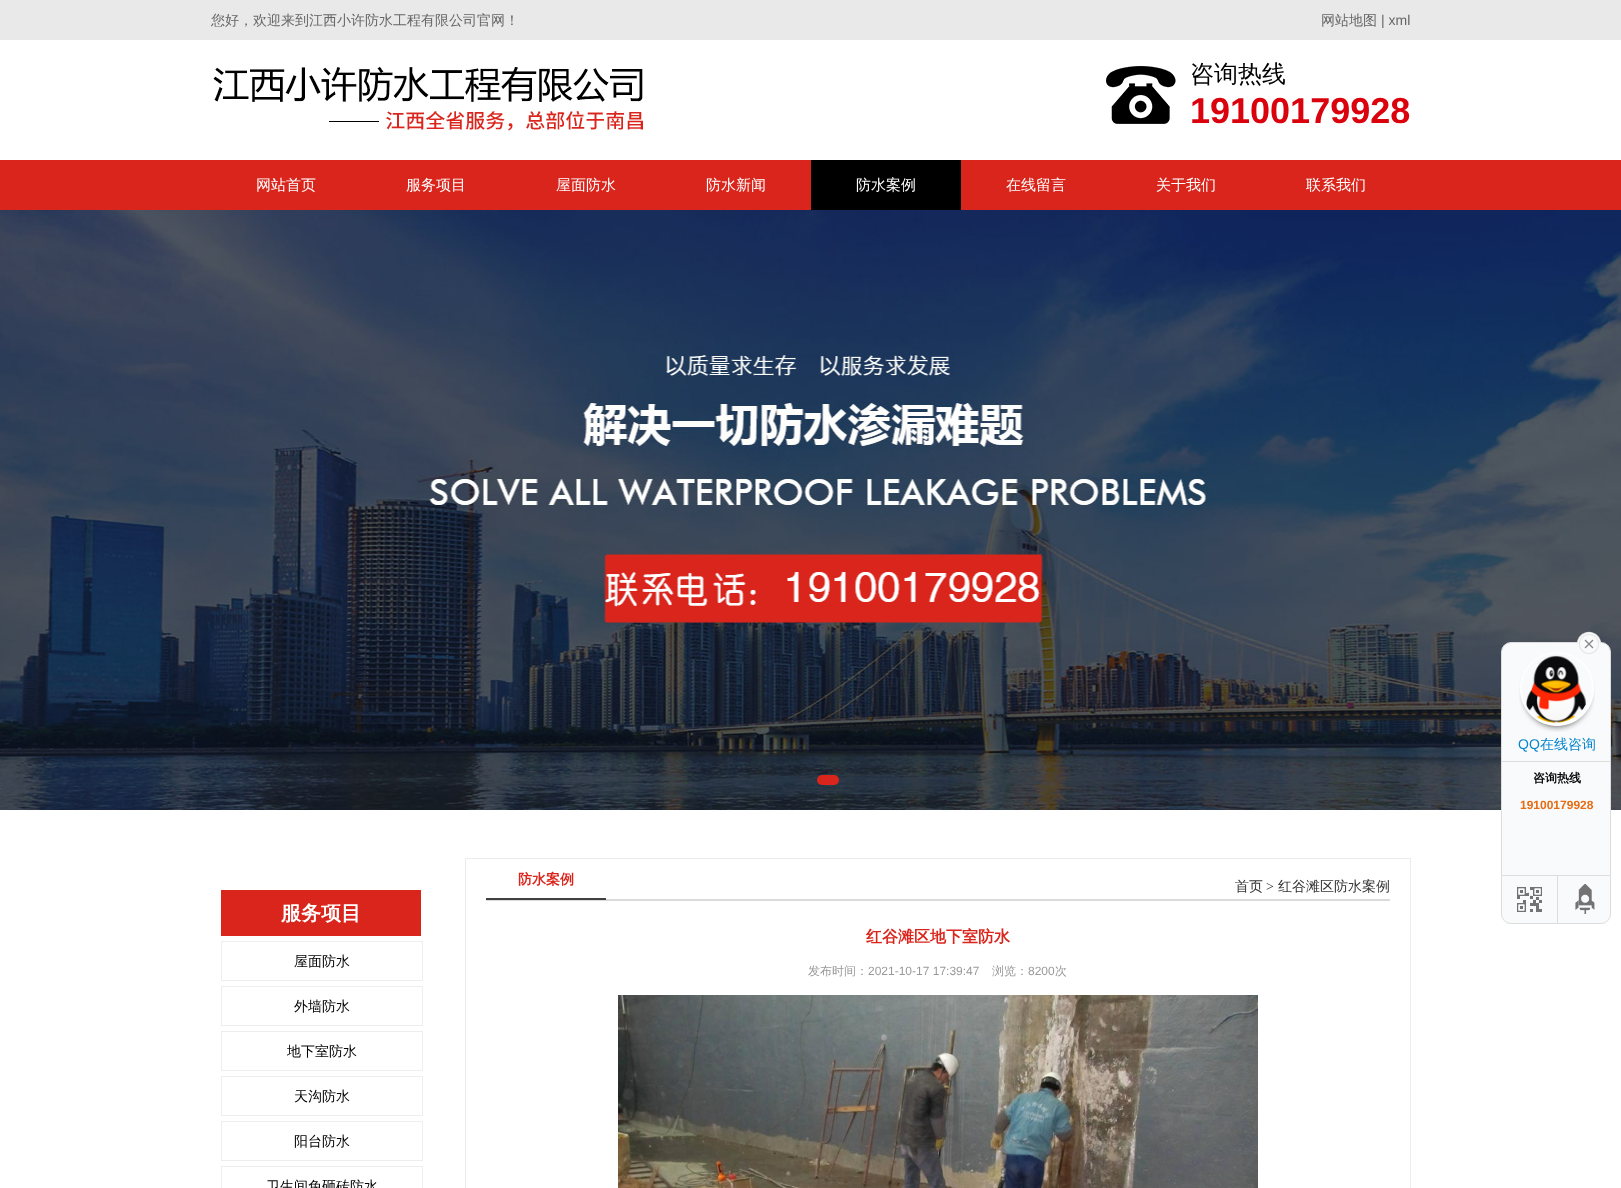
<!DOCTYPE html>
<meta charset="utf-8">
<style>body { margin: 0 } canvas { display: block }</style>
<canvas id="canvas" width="1621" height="1188"></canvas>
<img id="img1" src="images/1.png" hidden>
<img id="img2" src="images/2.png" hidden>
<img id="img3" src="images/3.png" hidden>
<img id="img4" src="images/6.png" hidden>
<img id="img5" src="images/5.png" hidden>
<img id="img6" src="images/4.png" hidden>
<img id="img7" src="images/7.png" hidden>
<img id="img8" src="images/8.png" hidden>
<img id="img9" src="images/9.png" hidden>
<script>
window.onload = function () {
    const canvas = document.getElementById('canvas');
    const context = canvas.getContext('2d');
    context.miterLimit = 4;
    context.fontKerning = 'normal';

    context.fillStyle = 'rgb(255, 255, 255)';
    context.fillRect(0, 0, 1621, 1188);
    context.fillStyle = 'rgb(233, 233, 233)';
    context.fillRect(0, 0, 1621, 40);
    context.drawImage(document.getElementById('img1'), 213, 66, 430, 65);
    context.drawImage(document.getElementById('img2'), 1106, 66, 70, 58);
    context.fillStyle = 'rgb(218, 37, 28)';
    context.fillRect(0, 160, 1621, 50);
    context.fillStyle = 'rgb(0, 0, 0)';
    context.fillRect(811, 160, 150, 50);
    context.drawImage(document.getElementById('img3'), 0, 210, 1621, 600);
    context.fillStyle = 'rgb(218, 37, 28)';
    context.beginPath();
    context.roundRect(817, 775, 22, 10, 5);
    context.fill();
    context.fillStyle = 'rgb(249, 250, 251)';
    context.beginPath();
    context.roundRect(1501.5, 642.5, 109, 281, 9.5);
    context.fill();
    context.strokeStyle = 'rgb(221, 221, 221)';
    context.stroke();
    context.drawImage(document.getElementById('img4'), 1526, 655, 60, 68);
    context.drawImage(document.getElementById('img5'), 1519, 652, 76, 80);
    context.drawImage(document.getElementById('img6'), 1577, 631, 24, 23);
    context.fillStyle = 'rgb(221, 221, 221)';
    context.fillRect(1502, 761, 109, 1);
    context.fillRect(1502, 875, 109, 1);
    context.drawImage(document.getElementById('img7'), 1517, 887, 25, 25);
    context.fillRect(1557, 876, 1, 47);
    context.drawImage(document.getElementById('img8'), 1575, 884, 20, 30);
    context.fillStyle = 'rgb(218, 37, 28)';
    context.fillRect(221, 890, 200, 46);
    context.strokeStyle = 'rgb(238, 238, 238)';
    context.strokeRect(221.5, 941.5, 201, 39);
    context.strokeRect(221.5, 986.5, 201, 39);
    context.strokeRect(221.5, 1031.5, 201, 39);
    context.strokeRect(221.5, 1076.5, 201, 39);
    context.strokeRect(221.5, 1121.5, 201, 39);
    context.strokeRect(221.5, 1166.5, 201, 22);
    context.strokeStyle = 'rgb(236, 236, 236)';
    context.strokeRect(465.5, 858.5, 945, 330);
    context.fillStyle = 'rgb(219, 219, 219)';
    context.fillRect(486, 899, 904, 2);
    context.fillStyle = 'rgb(65, 65, 65)';
    context.fillRect(486, 898, 120, 2);
    context.drawImage(document.getElementById('img9'), 618, 995, 640, 193);
    context.font = '500 14px WenQuanYi Zen Hei';
    context.fillStyle = 'rgb(102, 102, 102)';
    context.fillText('您好，欢迎来到江西小许防水工程有限公司官网！', 211, 25);
    context.fillText('网站地图', 1321, 25);
    context.font = '14px Liberation Sans';
    context.fillText('| xml', 1381, 25);
    context.font = '500 24px WenQuanYi Zen Hei';
    context.fillStyle = 'rgb(0, 0, 0)';
    context.fillText('咨询热线', 1190, 82);
    context.font = 'bold 36px Liberation Sans';
    context.fillStyle = 'rgb(218, 2, 13)';
    context.fillText('19100179928', 1190, 123);
    context.font = '500 15px WenQuanYi Zen Hei';
    context.fillStyle = 'rgb(255, 255, 255)';
    context.fillText('网站首页', 256, 190);
    context.fillText('服务项目', 406, 190);
    context.fillText('屋面防水', 556, 190);
    context.fillText('防水新闻', 706, 190);
    context.fillText('防水案例', 856, 190);
    context.fillText('在线留言', 1006, 190);
    context.fillText('关于我们', 1156, 190);
    context.fillText('联系我们', 1306, 190);
    context.font = '14px Liberation Sans';
    context.fillStyle = 'rgb(4, 132, 205)';
    context.fillText('QQ', 1518, 749);
    context.font = '500 14px WenQuanYi Zen Hei';
    context.fillText('在线咨询', 1540, 749);
    context.font = 'bold 12px WenQuanYi Zen Hei';
    context.fillStyle = 'rgb(0, 0, 0)';
    context.fillText('咨询热线', 1533, 782);
    context.font = 'bold 12px Liberation Sans';
    context.fillStyle = 'rgb(230, 109, 21)';
    context.fillText('19100179928', 1520, 809);
    context.font = 'bold 20px WenQuanYi Zen Hei';
    context.fillStyle = 'rgb(255, 255, 255)';
    context.fillText('服务项目', 281, 920);
    context.font = '500 14px WenQuanYi Zen Hei';
    context.fillStyle = 'rgb(0, 0, 0)';
    context.fillText('屋面防水', 294, 966);
    context.fillText('外墙防水', 294, 1011);
    context.fillText('地下室防水', 287, 1056);
    context.fillText('天沟防水', 294, 1101);
    context.fillText('阳台防水', 294, 1146);
    context.fillText('卫生间免砸砖防水', 266, 1191);
    context.font = 'bold 14px WenQuanYi Zen Hei';
    context.fillStyle = 'rgb(218, 37, 28)';
    context.fillText('防水案例', 518, 884);
    context.font = '500 14px WenQuanYi Zen Hei';
    context.fillStyle = 'rgb(51, 51, 51)';
    context.fillText('首页', 1235, 891);
    context.font = '14px Liberation Serif';
    context.fillText('>', 1266, 891);
    context.font = '500 14px WenQuanYi Zen Hei';
    context.fillText('红谷滩区防水案例', 1278, 891);
    context.font = 'bold 16px WenQuanYi Zen Hei';
    context.fillStyle = 'rgb(218, 37, 28)';
    context.fillText('红谷滩区地下室防水', 866, 942);
    context.font = '500 12px WenQuanYi Zen Hei';
    context.fillStyle = 'rgb(153, 153, 153)';
    context.fillText('发布时间：', 808, 975);
    context.font = '12px Liberation Sans';
    context.fillText('2021-10-17 17:39:47', 868, 975);
    context.font = '500 12px WenQuanYi Zen Hei';
    context.fillText('浏览：', 992, 975);
    context.font = '12px Liberation Sans';
    context.fillText('8200', 1028, 975);
    context.font = '500 12px WenQuanYi Zen Hei';
    context.fillText('次', 1055, 975);
};
</script>
